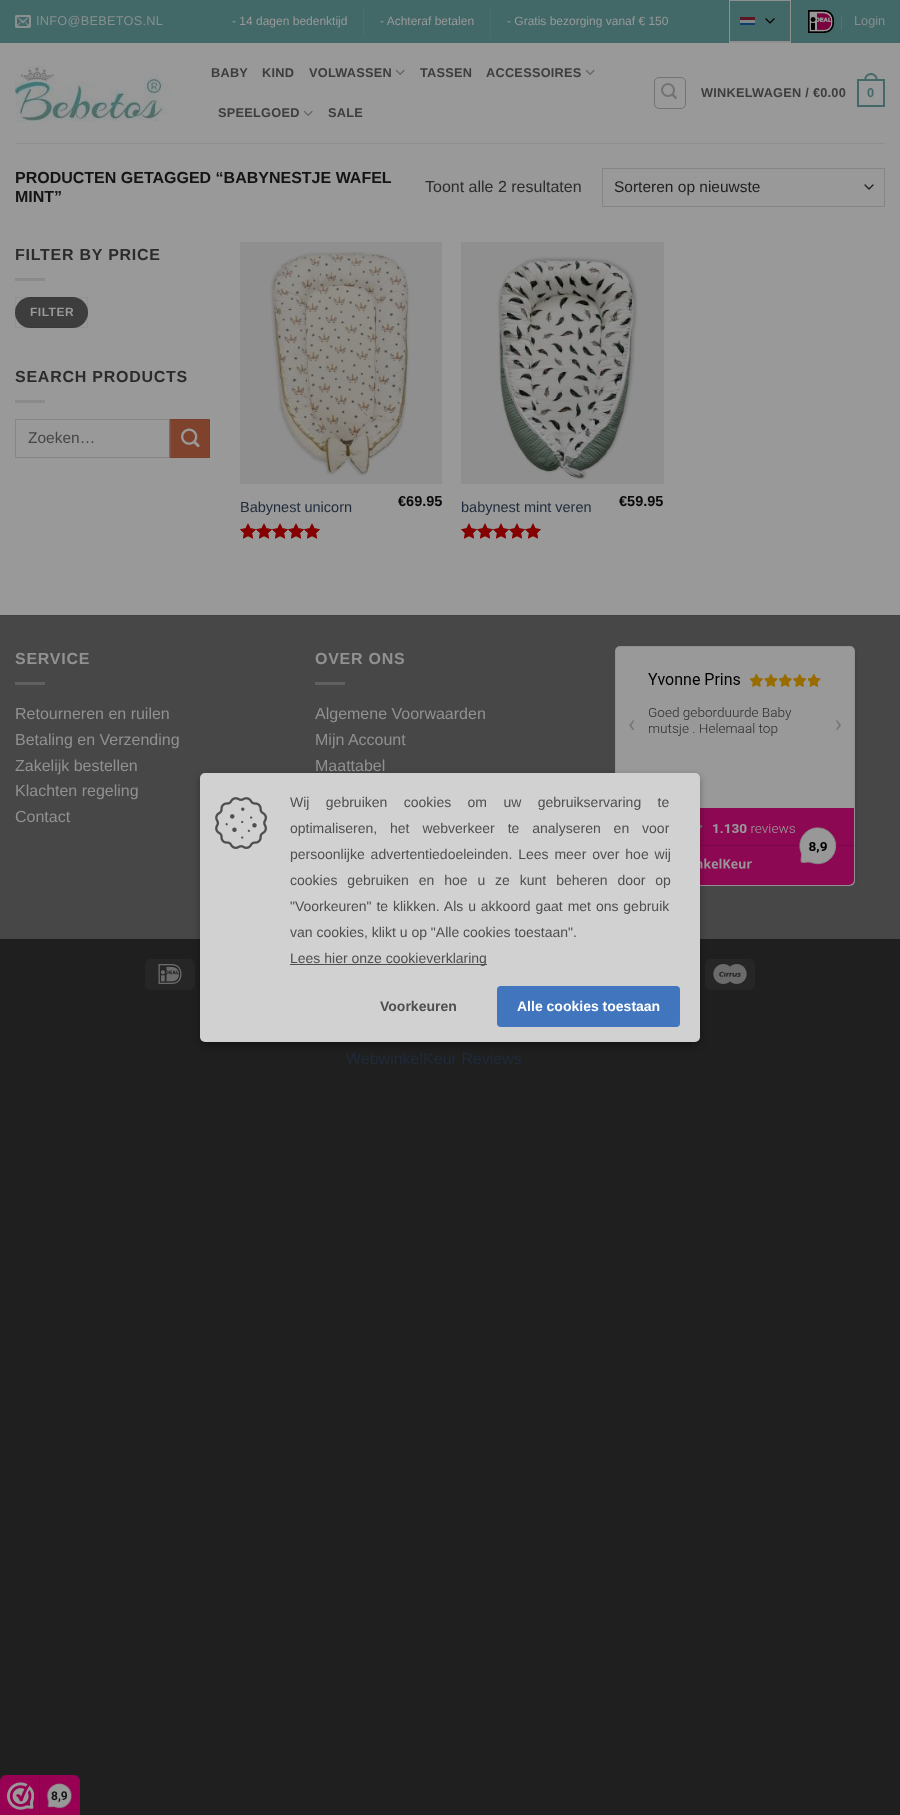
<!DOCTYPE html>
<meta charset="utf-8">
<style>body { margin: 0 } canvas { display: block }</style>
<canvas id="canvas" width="900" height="1815"></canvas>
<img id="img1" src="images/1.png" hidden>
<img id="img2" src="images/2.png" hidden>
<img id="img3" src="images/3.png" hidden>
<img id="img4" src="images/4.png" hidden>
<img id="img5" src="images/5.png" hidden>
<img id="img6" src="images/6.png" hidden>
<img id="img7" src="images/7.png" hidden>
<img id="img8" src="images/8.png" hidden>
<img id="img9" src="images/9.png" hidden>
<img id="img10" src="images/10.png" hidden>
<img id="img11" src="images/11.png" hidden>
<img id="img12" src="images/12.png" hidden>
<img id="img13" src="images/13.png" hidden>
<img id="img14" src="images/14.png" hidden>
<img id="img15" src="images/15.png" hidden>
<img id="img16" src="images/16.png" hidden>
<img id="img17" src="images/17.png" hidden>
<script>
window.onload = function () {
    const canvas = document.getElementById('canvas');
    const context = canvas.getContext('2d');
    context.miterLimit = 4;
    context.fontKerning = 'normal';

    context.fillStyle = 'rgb(31, 31, 31)';
    context.fillRect(0, 0, 900, 1815);
    context.fillStyle = 'rgb(153, 153, 153)';
    context.fillRect(0, 43, 900, 572);
    context.fillStyle = 'rgb(66, 105, 104)';
    context.fillRect(0, 0, 900, 43);
    context.drawImage(document.getElementById('img1'), 15, 15, 16, 13);
    context.fillStyle = 'rgb(75, 110, 109)';
    context.fillRect(363, 7, 1, 30);
    context.fillRect(490, 7, 1, 30);
    context.fillStyle = 'rgb(143, 143, 143)';
    context.fillRect(729, 42, 62, 1);
    context.strokeStyle = 'rgb(143, 143, 143)';
    context.strokeRect(729.5, 0.5, 61, 41);
    context.fillStyle = 'rgb(128, 136, 136)';
    context.fillRect(740, 20, 15, 3);
    context.fillStyle = 'rgb(91, 21, 35)';
    context.fillRect(740, 17, 15, 3);
    context.fillStyle = 'rgb(13, 61, 107)';
    context.fillRect(740, 23, 15, 2);
    context.drawImage(document.getElementById('img2'), 765, 18, 10, 6);
    context.drawImage(document.getElementById('img3'), 808, 10, 26, 23);
    context.fillStyle = 'rgb(83, 115, 114)';
    context.fillRect(841, 15, 1, 15);
    context.drawImage(document.getElementById('img4'), 15, 66, 158, 55);
    context.drawImage(document.getElementById('img5'), 395, 69, 10, 6);
    context.drawImage(document.getElementById('img5'), 585, 69, 10, 6);
    context.drawImage(document.getElementById('img5'), 303, 110, 10, 6);
    context.beginPath();
    context.roundRect(654.5, 77.5, 31, 31, 4.5);
    context.strokeStyle = 'rgb(115, 115, 115)';
    context.stroke();
    context.drawImage(document.getElementById('img6'), 661, 83, 16, 16);
    context.strokeStyle = 'rgb(66, 105, 104)';
    context.lineWidth = 2;
    context.strokeRect(858, 80, 26, 26);
    context.fillStyle = 'rgb(66, 105, 104)';
    context.beginPath();
    context.moveTo(871, 73);
    context.bezierCurveTo(875.5, 73, 878, 77, 878, 81);
    context.lineTo(864, 81);
    context.bezierCurveTo(864, 77, 866.5, 73, 871, 73);
    context.closePath();
    context.moveTo(871, 75);
    context.bezierCurveTo(874.5, 75, 876, 78, 876, 81);
    context.lineTo(866, 81);
    context.bezierCurveTo(866, 78, 867.5, 75, 871, 75);
    context.closePath();
    context.fill('evenodd');
    context.fillStyle = 'rgb(142, 142, 142)';
    context.fillRect(15, 143, 870, 1);
    context.beginPath();
    context.moveTo(865, 185);
    context.lineTo(869, 189);
    context.lineTo(873, 185);
    context.strokeStyle = 'rgb(31, 31, 31)';
    context.lineWidth = 1.3;
    context.lineCap = 'round';
    context.lineJoin = 'round';
    context.stroke();
    context.strokeStyle = 'rgb(133, 133, 133)';
    context.lineWidth = 1;
    context.lineJoin = 'miter';
    context.strokeRect(602.5, 168.5, 282, 38);
    context.fillStyle = 'rgb(138, 138, 138)';
    context.fillRect(15, 278, 30, 3);
    context.fillStyle = 'rgb(61, 61, 61)';
    context.beginPath();
    context.roundRect(15, 297, 73, 31, 15.5);
    context.fill();
    context.strokeStyle = 'rgba(0, 0, 0, 0.05)';
    context.strokeRect(15.5, 297.5, 72, 30);
    context.fillStyle = 'rgb(138, 138, 138)';
    context.fillRect(15, 400, 30, 3);
    context.strokeStyle = 'rgb(133, 133, 133)';
    context.strokeRect(15.5, 419.5, 154, 38);
    context.fillStyle = 'rgb(126, 66, 45)';
    context.beginPath();
    context.rect(170.5, 419.5, 39, 38);
    context.fill();
    context.strokeStyle = 'rgb(120, 63, 43)';
    context.stroke();
    context.drawImage(document.getElementById('img7'), 181, 428, 19, 20);
    context.drawImage(document.getElementById('img8'), 240, 242, 202, 242);
    context.drawImage(document.getElementById('img9'), 240, 523, 80, 16);
    context.drawImage(document.getElementById('img10'), 240, 523, 80, 16);
    context.drawImage(document.getElementById('img11'), 461, 242, 203, 242);
    context.drawImage(document.getElementById('img9'), 461, 523, 80, 16);
    context.drawImage(document.getElementById('img10'), 461, 523, 80, 16);
    context.fillStyle = 'rgb(71, 71, 71)';
    context.fillRect(0, 616, 900, 323);
    context.fillStyle = 'rgb(68, 68, 68)';
    context.fillRect(0, 615, 900, 1);
    context.fillStyle = 'rgb(96, 96, 96)';
    context.fillRect(15, 682, 30, 3);
    context.fillRect(315, 682, 30, 3);
    context.drawImage(document.getElementById('img12'), 615, 646, 242, 240);
    context.fillStyle = 'rgb(38, 38, 38)';
    context.beginPath();
    context.roundRect(145, 959, 50, 31, 5);
    context.fill();
    context.drawImage(document.getElementById('img13'), 158, 964, 24, 20);
    context.beginPath();
    context.roundRect(705, 959, 50, 31, 5);
    context.fill();
    context.drawImage(document.getElementById('img14'), 713, 964, 34, 20);
    context.fillStyle = 'rgba(0, 0, 0, 0.3)';
    context.filter = 'blur(3.5px)';
    context.beginPath();
    context.roundRect(200, 776, 500, 269, 5);
    context.fill();
    context.filter = 'none';
    context.fillStyle = 'rgb(209, 209, 209)';
    context.beginPath();
    context.roundRect(200, 773, 500, 269, 5);
    context.fill();
    context.drawImage(document.getElementById('img15'), 215, 797, 52, 52);
    context.fillStyle = 'rgb(79, 79, 79)';
    context.fillRect(290, 964, 197, 1);
    context.fillStyle = 'rgb(65, 117, 189)';
    context.beginPath();
    context.roundRect(497, 986, 183, 41, 4);
    context.fill();
    context.fillStyle = 'rgb(152, 0, 84)';
    context.beginPath();
    context.roundRect(0, 1775, 80, 40, [6, 6, 0, 0]);
    context.fill();
    context.drawImage(document.getElementById('img16'), 7, 1782, 27, 28);
    context.fillStyle = 'rgb(130, 0, 71)';
    context.fillRect(39, 1776, 1, 39);
    context.drawImage(document.getElementById('img17'), 46, 1783, 26, 26);
    context.letterSpacing = '0.25px';
    context.font = '12.75px Liberation Sans';
    context.fillStyle = 'rgb(136, 143, 143)';
    context.fillText('INFO@BEBETOS.NL', 36, 25);
    context.letterSpacing = '0px';
    context.font = '12px Liberation Sans';
    context.fillStyle = 'rgb(153, 153, 153)';
    context.fillText('- 14 dagen bedenktijd', 232, 25);
    context.fillText('- Achteraf betalen', 380, 25);
    context.fillText('- Gratis bezorging vanaf € 150', 507, 25);
    context.font = '12.75px Liberation Sans';
    context.fillStyle = 'rgb(136, 143, 143)';
    context.fillText('Login', 854, 25);
    context.letterSpacing = '0.25px';
    context.font = 'bold 12.75px Liberation Sans';
    context.fillStyle = 'rgb(61, 61, 61)';
    context.fillText('BABY', 211, 77);
    context.fillText('KIND', 262, 77);
    context.fillText('VOLWASSEN', 309, 77);
    context.fillText('TASSEN', 420, 77);
    context.fillText('ACCESSOIRES', 486, 77);
    context.fillText('SPEELGOED', 218, 117);
    context.fillText('SALE', 328, 117);
    context.fillText('WINKELWAGEN / €0.00', 701, 97);
    context.fillStyle = 'rgb(66, 105, 104)';
    context.fillText('0', 867, 97);
    context.letterSpacing = '0px';
    context.font = 'bold 16px Liberation Sans';
    context.fillStyle = 'rgb(20, 20, 20)';
    context.fillText('PRODUCTEN GETAGGED “BABYNESTJE WAFEL', 15, 183);
    context.fillText('MINT”', 15, 202);
    context.font = '16px Liberation Sans';
    context.fillStyle = 'rgb(44, 44, 44)';
    context.fillText('Toont alle 2 resultaten', 425, 192);
    context.font = '15.5px Liberation Sans';
    context.fillStyle = 'rgb(31, 31, 31)';
    context.fillText('Sorteren op nieuwste', 614, 192);
    context.letterSpacing = '0.75px';
    context.font = 'bold 16px Liberation Sans';
    context.fillStyle = 'rgb(44, 44, 44)';
    context.fillText('FILTER BY PRICE', 15, 260);
    context.letterSpacing = '0.5px';
    context.font = 'bold 12px Liberation Sans';
    context.fillStyle = 'rgb(153, 153, 153)';
    context.fillText('FILTER', 30, 316);
    context.letterSpacing = '0.75px';
    context.font = 'bold 16px Liberation Sans';
    context.fillStyle = 'rgb(44, 44, 44)';
    context.fillText('SEARCH PRODUCTS', 15, 382);
    context.letterSpacing = '0px';
    context.font = '15.5px Liberation Sans';
    context.fillStyle = 'rgb(70, 70, 70)';
    context.fillText('Zoeken…', 28, 443);
    context.font = '14.5px Liberation Sans';
    context.fillStyle = 'rgb(31, 43, 59)';
    context.fillText('Babynest unicorn', 240, 512);
    context.font = 'bold 14.5px Liberation Sans';
    context.fillStyle = 'rgb(10, 10, 10)';
    context.fillText('€69.95', 398, 506);
    context.font = '14.5px Liberation Sans';
    context.fillStyle = 'rgb(31, 43, 59)';
    context.fillText('babynest mint veren', 461, 512);
    context.font = 'bold 14.5px Liberation Sans';
    context.fillStyle = 'rgb(10, 10, 10)';
    context.fillText('€59.95', 619, 506);
    context.letterSpacing = '0.75px';
    context.font = 'bold 16px Liberation Sans';
    context.fillStyle = 'rgb(145, 145, 145)';
    context.fillText('SERVICE', 15, 664);
    context.letterSpacing = '0px';
    context.font = '16px Liberation Sans';
    context.fillText('Retourneren en ruilen', 15, 719);
    context.fillText('Betaling en Verzending', 15, 745);
    context.fillText('Zakelijk bestellen', 15, 771);
    context.fillText('Klachten regeling', 15, 796);
    context.fillText('Contact', 15, 822);
    context.letterSpacing = '0.75px';
    context.font = 'bold 16px Liberation Sans';
    context.fillText('OVER ONS', 315, 664);
    context.letterSpacing = '0px';
    context.font = '16px Liberation Sans';
    context.fillText('Algemene Voorwaarden', 315, 719);
    context.fillText('Mijn Account', 315, 745);
    context.fillText('Maattabel', 315, 771);
    context.wordSpacing = '12.5px';
    context.font = '14px Liberation Sans';
    context.fillStyle = 'rgb(79, 79, 79)';
    context.fillText('Wij gebruiken cookies om uw gebruikservaring te', 290, 807);
    context.wordSpacing = '9px';
    context.fillText('optimaliseren, het webverkeer te analyseren en voor', 290, 833);
    context.wordSpacing = '2px';
    context.fillText('persoonlijke advertentiedoeleinden. Lees meer over hoe wij', 290, 859);
    context.wordSpacing = '6px';
    context.fillText('cookies gebruiken en hoe u ze kunt beheren door op', 290, 885);
    context.wordSpacing = '1px';
    context.fillText('"Voorkeuren" te klikken. Als u akkoord gaat met ons gebruik', 290, 911);
    context.wordSpacing = '0px';
    context.fillText('van cookies, klikt u op "Alle cookies toestaan".', 290, 937);
    context.fillText('Lees hier onze cookieverklaring', 290, 963);
    context.font = 'bold 14px Liberation Sans';
    context.fillText('Voorkeuren', 380, 1011);
    context.fillStyle = 'rgb(255, 255, 255)';
    context.fillText('Alle cookies toestaan', 517, 1011);
    context.font = '16px Liberation Sans';
    context.fillStyle = 'rgb(31, 43, 59)';
    context.fillText('WebwinkelKeur Reviews', 346, 1064);
    context.font = 'bold 12px Roboto';
    context.fillStyle = 'rgb(20, 20, 20)';
    context.fillText('8,9', 51, 1800);
};
</script>
